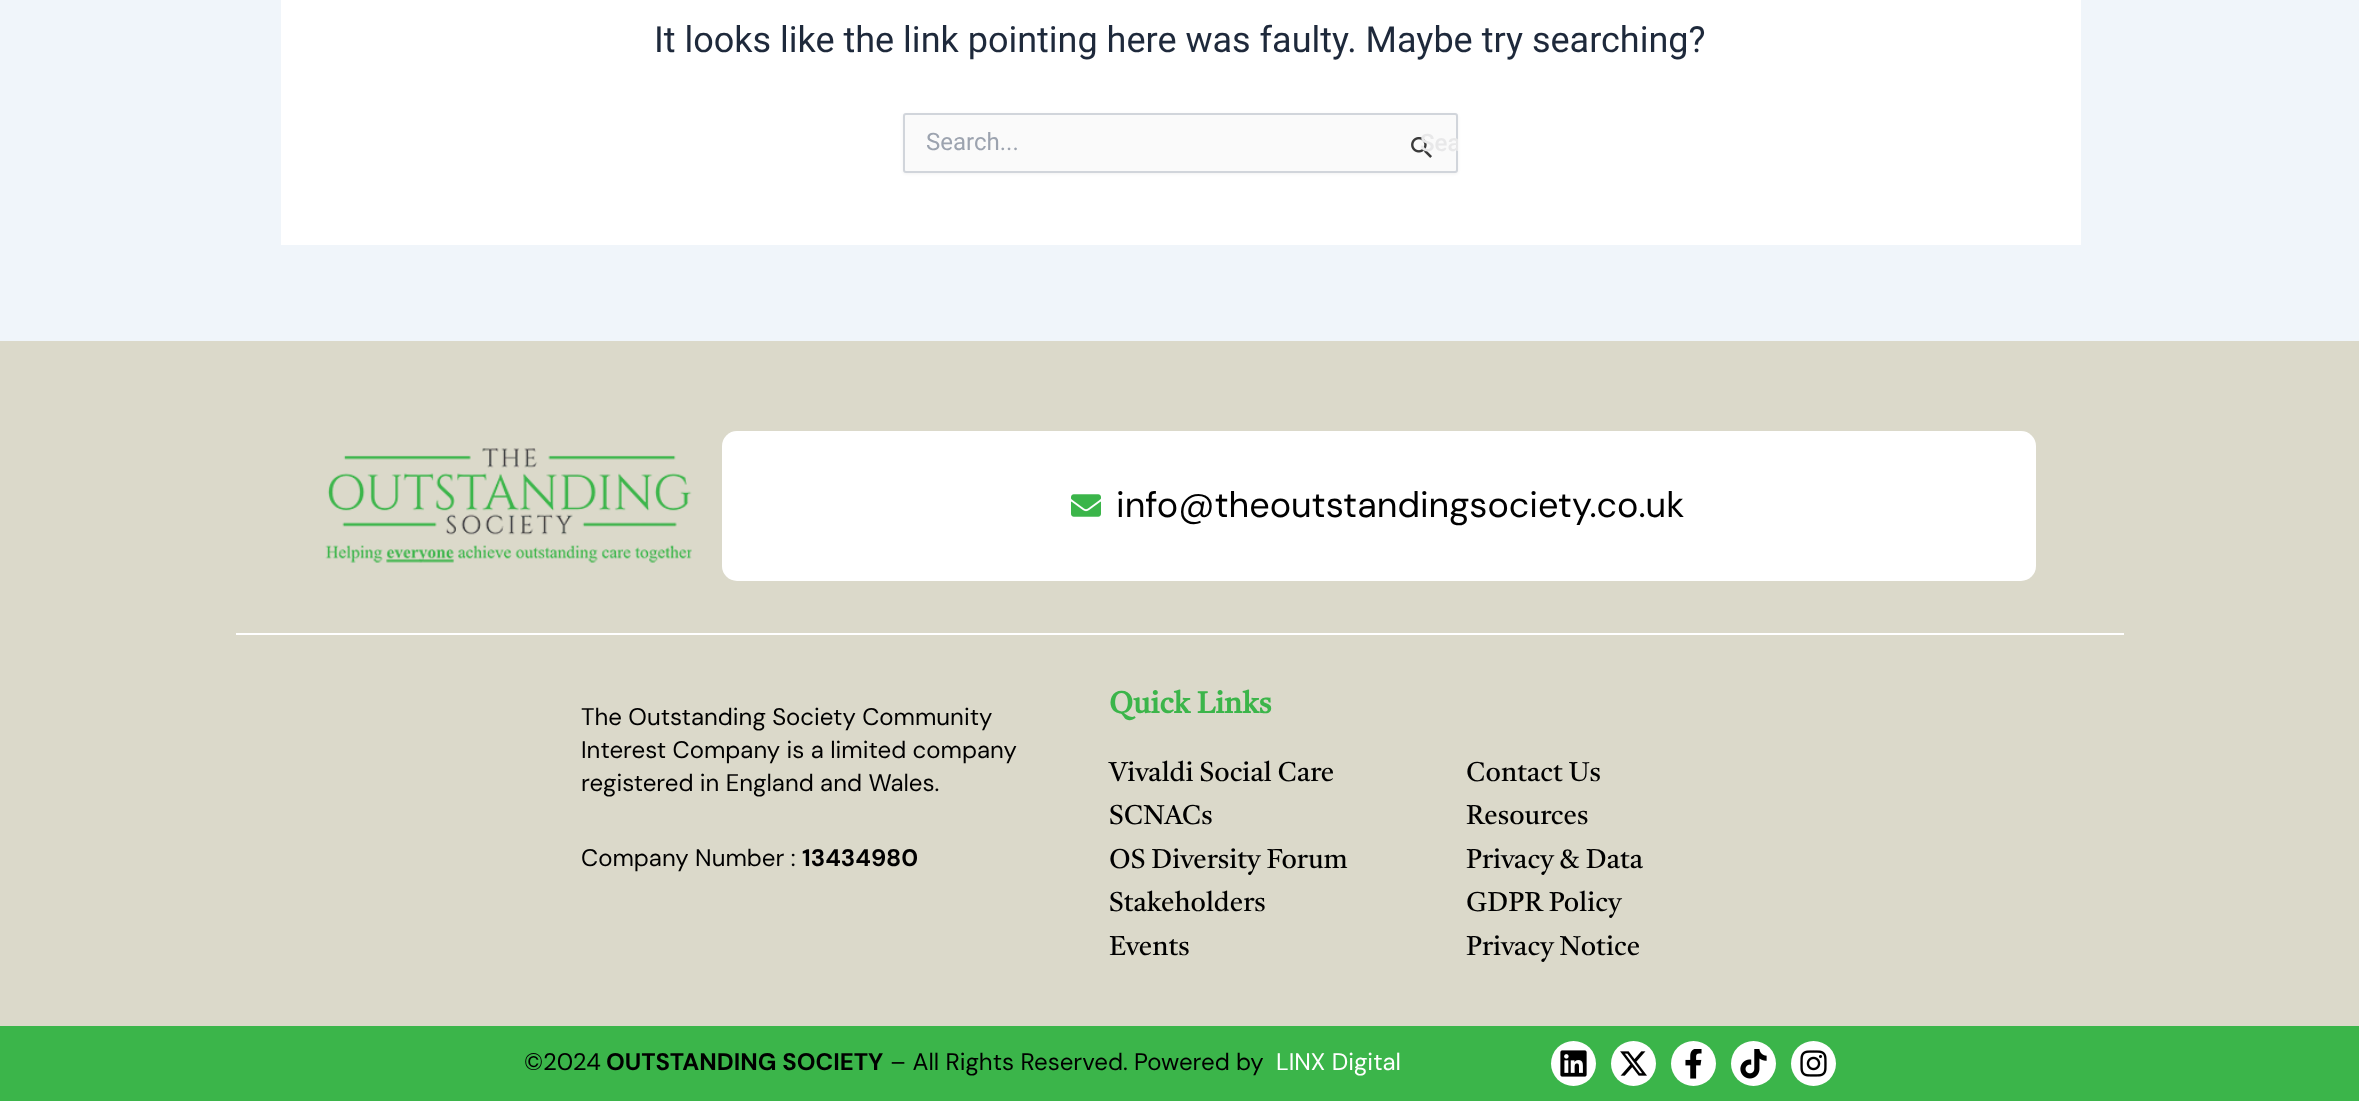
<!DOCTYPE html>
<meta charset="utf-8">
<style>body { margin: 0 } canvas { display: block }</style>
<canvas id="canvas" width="2359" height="1101"></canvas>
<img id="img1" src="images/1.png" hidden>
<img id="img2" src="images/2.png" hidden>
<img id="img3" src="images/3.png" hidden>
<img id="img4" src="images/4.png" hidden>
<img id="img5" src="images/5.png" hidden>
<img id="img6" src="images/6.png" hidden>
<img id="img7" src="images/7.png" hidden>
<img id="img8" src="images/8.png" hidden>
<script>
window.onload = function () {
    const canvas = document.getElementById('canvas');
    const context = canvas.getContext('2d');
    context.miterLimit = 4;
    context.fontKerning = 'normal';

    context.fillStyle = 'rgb(240, 245, 250)';
    context.fillRect(0, 0, 2359, 1101);
    context.fillStyle = 'rgb(255, 255, 255)';
    context.fillRect(281, 0, 1800, 245);
    context.fillStyle = 'rgba(0, 0, 0, 0.05)';
    context.filter = 'blur(1.5px)';
    context.beginPath();
    context.roundRect(903, 114, 555, 60, 3);
    context.fill();
    context.filter = 'none';
    context.fillStyle = 'rgb(250, 250, 250)';
    context.beginPath();
    context.roundRect(904, 114, 553, 58, 2);
    context.fill();
    context.strokeStyle = 'rgb(209, 213, 219)';
    context.lineWidth = 2;
    context.stroke();
    context.drawImage(document.getElementById('img1'), 1411, 137, 21, 21);
    context.fillStyle = 'rgb(219, 217, 202)';
    context.fillRect(0, 341, 2359, 685);
    context.drawImage(document.getElementById('img2'), 325, 448, 367, 115);
    context.fillStyle = 'rgb(255, 255, 255)';
    context.beginPath();
    context.roundRect(722, 431, 1314, 150, 15);
    context.fill();
    context.drawImage(document.getElementById('img3'), 1071, 494, 30, 23);
    context.fillRect(236, 633, 1888, 2);
    context.fillStyle = 'rgb(59, 181, 74)';
    context.fillRect(0, 1026, 2359, 75);
    context.fillStyle = 'rgb(255, 255, 255)';
    context.beginPath();
    context.arc(1573.5, 1063.5, 22.5, 0, 2 * Math.PI);
    context.fill();
    context.drawImage(document.getElementById('img4'), 1560, 1050, 27, 27);
    context.beginPath();
    context.arc(1633.5, 1063.5, 22.5, 0, 2 * Math.PI);
    context.fill();
    context.drawImage(document.getElementById('img5'), 1620, 1051, 27, 25);
    context.beginPath();
    context.arc(1693.5, 1063.5, 22.5, 0, 2 * Math.PI);
    context.fill();
    context.drawImage(document.getElementById('img6'), 1685, 1049, 17, 30);
    context.beginPath();
    context.arc(1753.5, 1063.5, 22.5, 0, 2 * Math.PI);
    context.fill();
    context.drawImage(document.getElementById('img7'), 1740, 1049, 27, 30);
    context.beginPath();
    context.arc(1813.5, 1063.5, 22.5, 0, 2 * Math.PI);
    context.fill();
    context.drawImage(document.getElementById('img8'), 1800, 1050, 27, 27);
    context.font = '36px Roboto';
    context.fillStyle = 'rgb(30, 41, 59)';
    context.fillText('It looks like the link pointing here was faulty. Maybe try searching?', 654, 52);
    context.font = '24px Roboto';
    context.fillStyle = 'rgb(156, 163, 175)';
    context.fillText('Search...', 926, 150);
    context.save();
    context.beginPath();
    context.roundRect(1391, 113, 67, 63, 3);
    context.clip();
    context.font = '500 24px Roboto';
    context.fillStyle = 'rgb(232, 232, 233)';
    context.fillText('Sea', 1420, 151);
    context.restore();
    context.font = '36px DM Sans';
    context.fillStyle = 'rgb(0, 0, 0)';
    context.fillText('info@theoutstandingsociety.co.uk', 1116, 517);
    context.font = '24px DM Sans';
    context.fillText('The Outstanding Society Community', 581, 725);
    context.fillText('Interest Company is a limited company', 581, 758);
    context.fillText('registered in England and Wales.', 581, 791);
    context.fillText('Company Number :', 581, 866);
    context.font = 'bold 24px DM Sans';
    context.fillText('13434980', 802, 866);
    context.font = 'bold 30px Castoro';
    context.fillStyle = 'rgb(59, 181, 74)';
    context.fillText('Quick Links', 1109, 713);
    context.font = '27px Castoro';
    context.fillStyle = 'rgb(0, 0, 0)';
    context.fillText('Vivaldi Social Care', 1109, 781);
    context.fillText('SCNACs', 1109, 824);
    context.fillText('OS Diversity Forum', 1109, 868);
    context.fillText('Stakeholders', 1109, 911);
    context.fillText('Events', 1109, 955);
    context.fillText('Contact Us', 1466, 781);
    context.fillText('Resources', 1466, 824);
    context.fillText('Privacy & Data', 1466, 868);
    context.fillText('GDPR Policy', 1466, 911);
    context.fillText('Privacy Notice', 1466, 955);
    context.font = '24px DM Sans';
    context.fillText('©2024', 524, 1070);
    context.font = 'bold 24px DM Sans';
    context.fillText('OUTSTANDING SOCIETY', 606, 1070);
    context.font = '24px DM Sans';
    context.fillText('– All Rights Reserved. Powered by', 890, 1070);
    context.fillStyle = 'rgb(255, 255, 255)';
    context.fillText('LINX Digital', 1276, 1070);
};
</script>
